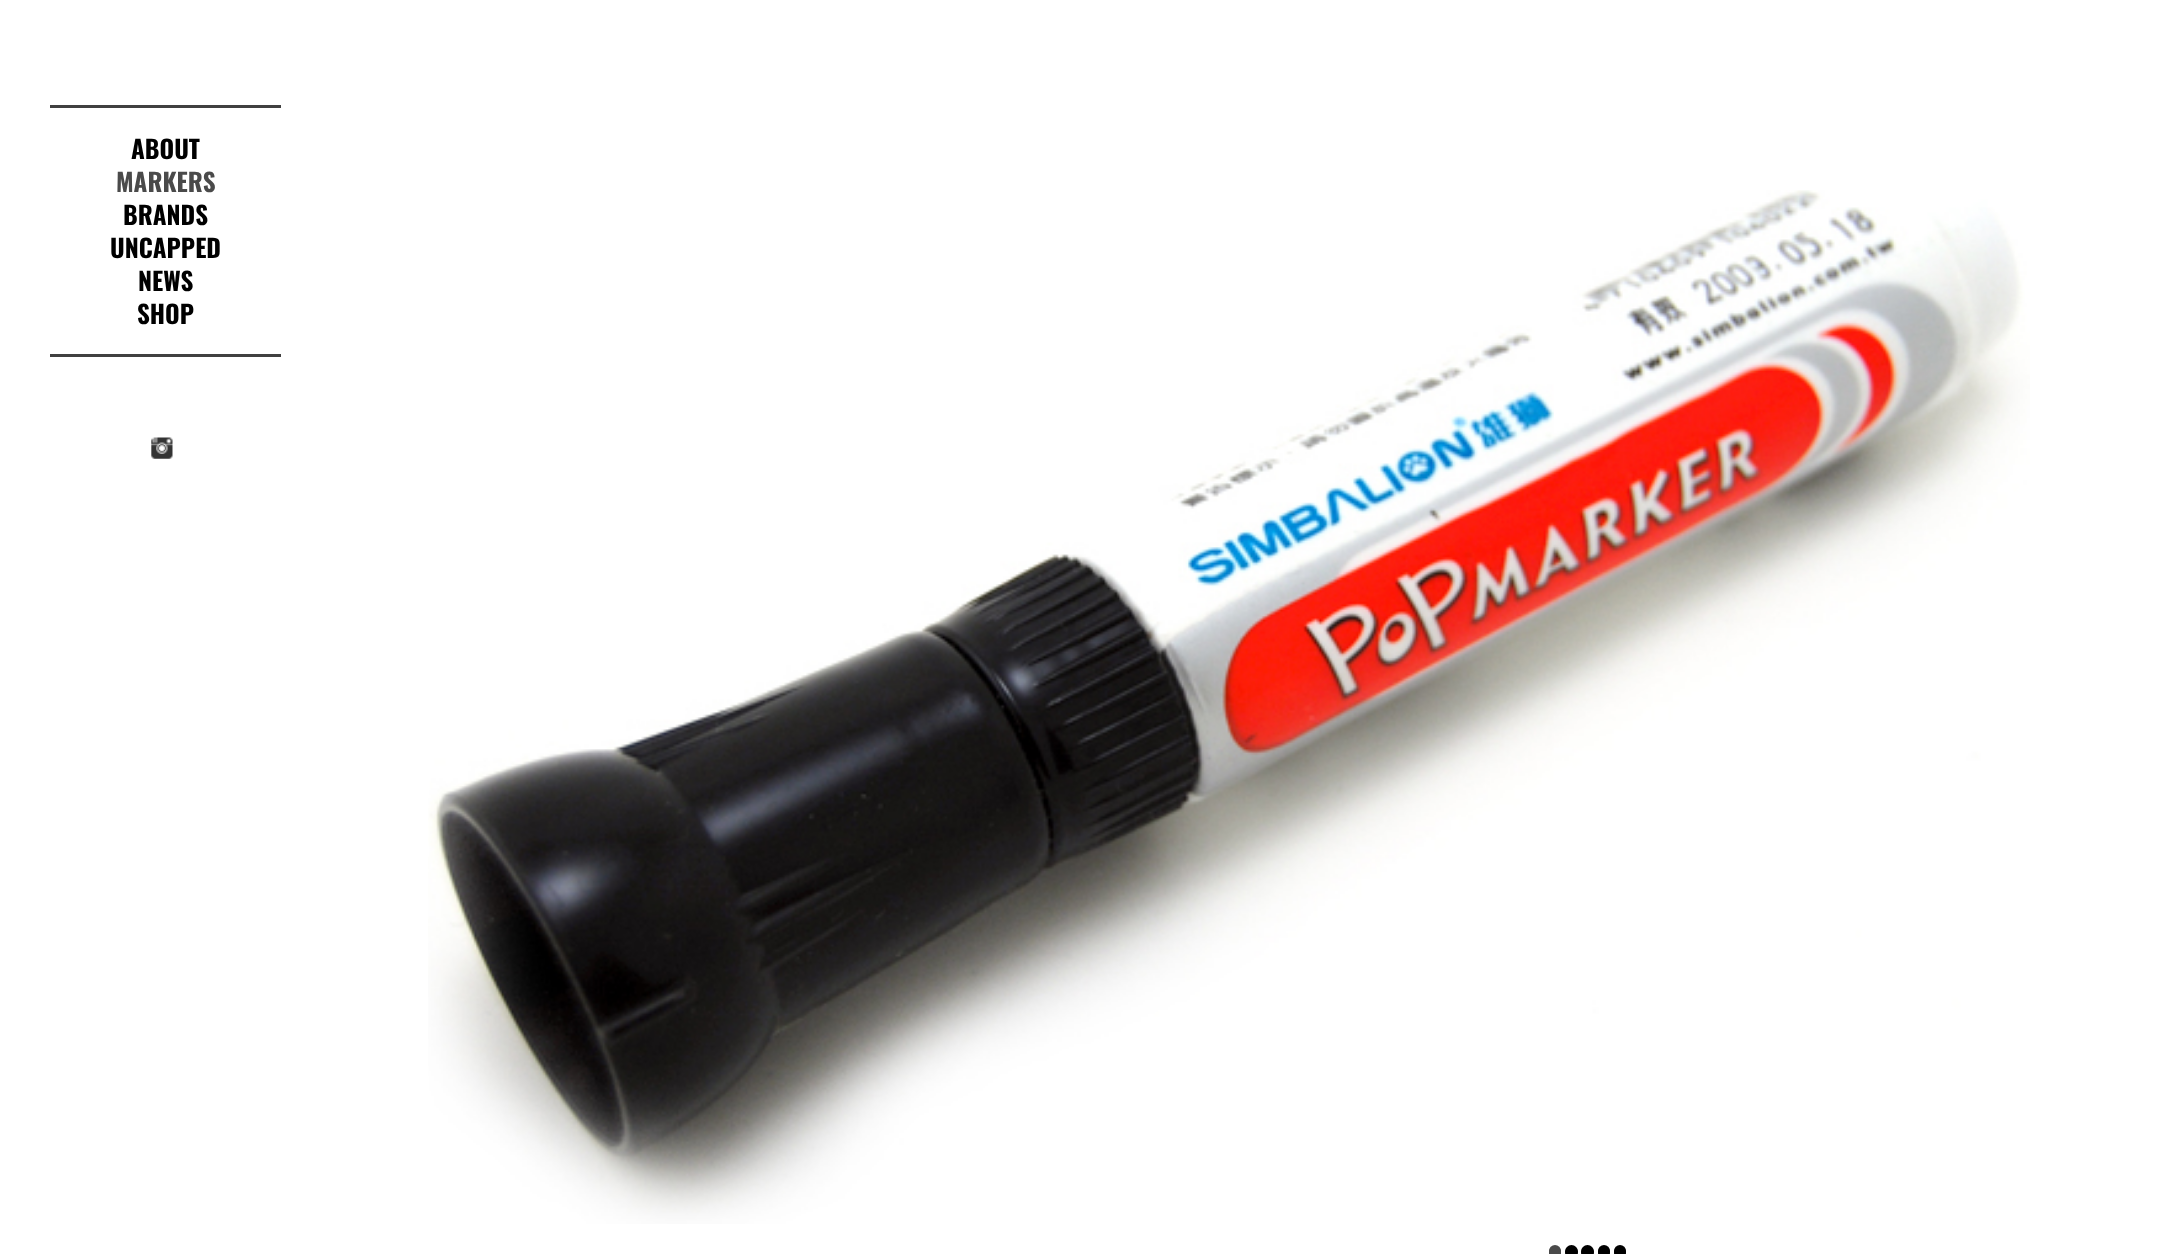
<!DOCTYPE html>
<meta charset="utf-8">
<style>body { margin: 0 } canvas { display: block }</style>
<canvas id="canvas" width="2159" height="1254"></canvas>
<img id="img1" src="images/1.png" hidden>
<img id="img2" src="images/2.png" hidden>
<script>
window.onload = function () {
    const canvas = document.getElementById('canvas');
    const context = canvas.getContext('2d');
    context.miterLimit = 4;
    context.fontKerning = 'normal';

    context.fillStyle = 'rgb(255, 255, 255)';
    context.fillRect(0, 0, 2159, 1254);
    context.fillStyle = 'rgb(64, 64, 64)';
    context.fillRect(50, 105, 231, 3);
    context.fillRect(50, 354, 231, 3);
    context.drawImage(document.getElementById('img1'), 151, 437, 22, 22);
    context.drawImage(document.getElementById('img2'), 428, 190, 1602, 1034);
    context.fillStyle = 'rgba(0, 0, 0, 0.75)';
    context.filter = 'blur(0.5px)';
    context.beginPath();
    context.roundRect(1549, 1246, 12, 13, 6);
    context.fill();
    context.filter = 'none';
    context.fillStyle = 'rgb(74, 74, 74)';
    context.beginPath();
    context.roundRect(1549, 1245, 12, 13, 6);
    context.fill();
    context.fillStyle = 'rgba(0, 0, 0, 0.75)';
    context.filter = 'blur(0.5px)';
    context.beginPath();
    context.roundRect(1565, 1246, 13, 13, 6.5);
    context.fill();
    context.filter = 'none';
    context.fillStyle = 'rgb(0, 0, 0)';
    context.beginPath();
    context.arc(1571.5, 1251.5, 6.5, 0, 2 * Math.PI);
    context.fill();
    context.fillStyle = 'rgba(0, 0, 0, 0.75)';
    context.filter = 'blur(0.5px)';
    context.beginPath();
    context.roundRect(1581, 1246, 13, 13, 6.5);
    context.fill();
    context.filter = 'none';
    context.fillStyle = 'rgb(0, 0, 0)';
    context.beginPath();
    context.arc(1587.5, 1251.5, 6.5, 0, 2 * Math.PI);
    context.fill();
    context.fillStyle = 'rgba(0, 0, 0, 0.75)';
    context.filter = 'blur(0.5px)';
    context.beginPath();
    context.roundRect(1598, 1246, 12, 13, 6);
    context.fill();
    context.filter = 'none';
    context.fillStyle = 'rgb(0, 0, 0)';
    context.beginPath();
    context.roundRect(1598, 1245, 12, 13, 6);
    context.fill();
    context.fillStyle = 'rgba(0, 0, 0, 0.75)';
    context.filter = 'blur(0.5px)';
    context.beginPath();
    context.roundRect(1614, 1246, 12, 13, 6);
    context.fill();
    context.filter = 'none';
    context.fillStyle = 'rgb(0, 0, 0)';
    context.beginPath();
    context.roundRect(1614, 1245, 12, 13, 6);
    context.fill();
    context.font = 'bold 25px Oswald';
    context.fillText('ABOUT', 131, 159);
    context.fillStyle = 'rgb(74, 74, 74)';
    context.fillText('MARKERS', 116, 192);
    context.fillStyle = 'rgb(0, 0, 0)';
    context.fillText('BRANDS', 123, 225);
    context.fillText('UNCAPPED', 110, 258);
    context.fillText('NEWS', 138, 291);
    context.fillText('SHOP', 137, 324);
};
</script>
